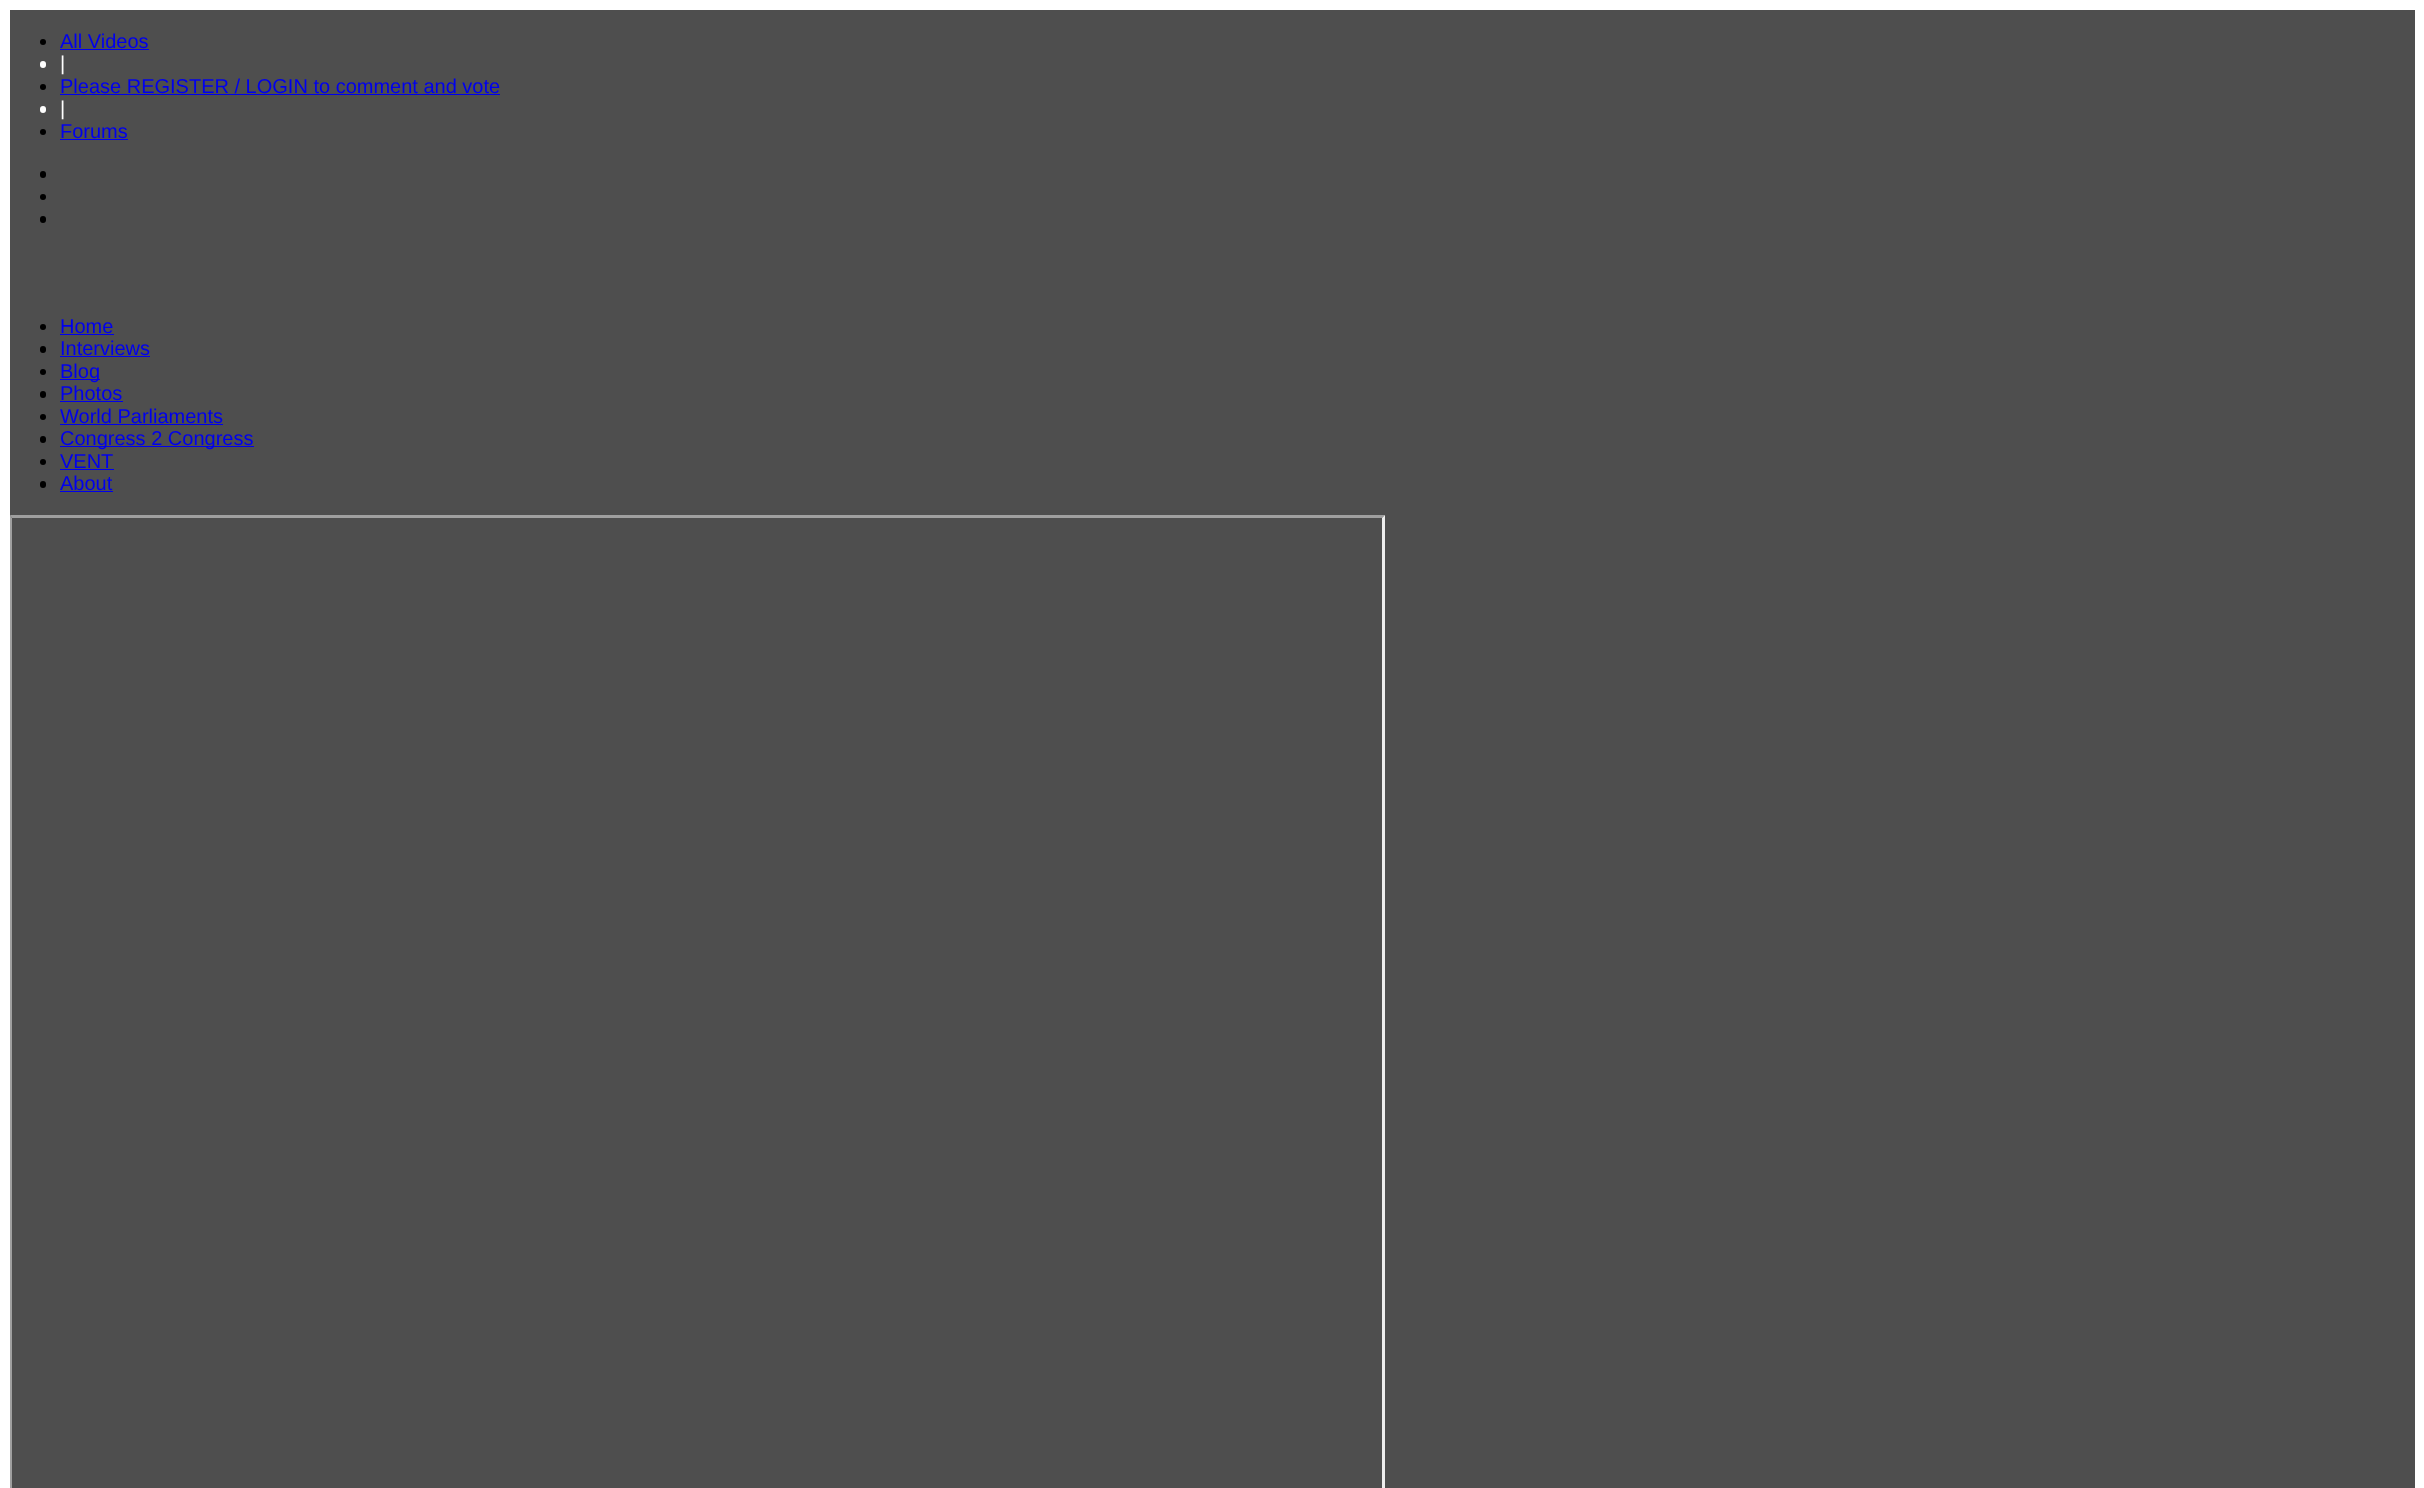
<!DOCTYPE html>
<meta charset="utf-8">
<style>body { margin: 0 } canvas { display: block }</style>
<canvas id="canvas" width="2424" height="1488"></canvas>
<script>
window.onload = function () {
    const canvas = document.getElementById('canvas');
    const context = canvas.getContext('2d');
    context.miterLimit = 4;
    context.fontKerning = 'normal';

    context.fillStyle = 'rgb(255, 255, 255)';
    context.fillRect(0, 0, 2424, 1488);
    context.fillStyle = 'rgb(78, 78, 78)';
    context.fillRect(10, 10, 2405, 1478);
    context.fillStyle = 'rgb(0, 0, 0)';
    context.beginPath();
    context.arc(43, 42, 3, 0, 2 * Math.PI);
    context.fill();
    context.fillStyle = 'rgb(0, 0, 238)';
    context.fillRect(60, 49, 89, 1);
    context.fillStyle = 'rgb(255, 255, 255)';
    context.beginPath();
    context.roundRect(40, 61, 6, 7, 3);
    context.fill();
    context.fillStyle = 'rgb(0, 0, 0)';
    context.beginPath();
    context.arc(43, 87, 3, 0, 2 * Math.PI);
    context.fill();
    context.fillStyle = 'rgb(0, 0, 238)';
    context.fillRect(60, 94, 440, 1);
    context.fillStyle = 'rgb(255, 255, 255)';
    context.beginPath();
    context.roundRect(40, 106, 6, 7, 3);
    context.fill();
    context.fillStyle = 'rgb(0, 0, 0)';
    context.beginPath();
    context.arc(43, 132, 3, 0, 2 * Math.PI);
    context.fill();
    context.fillStyle = 'rgb(0, 0, 238)';
    context.fillRect(60, 139, 68, 1);
    context.fillStyle = 'rgb(0, 0, 0)';
    context.beginPath();
    context.roundRect(40, 171, 6, 7, 3);
    context.fill();
    context.beginPath();
    context.arc(43, 197, 3, 0, 2 * Math.PI);
    context.fill();
    context.beginPath();
    context.roundRect(40, 216, 6, 7, 3);
    context.fill();
    context.beginPath();
    context.arc(43, 327, 3, 0, 2 * Math.PI);
    context.fill();
    context.fillStyle = 'rgb(0, 0, 238)';
    context.fillRect(60, 334, 54, 1);
    context.fillStyle = 'rgb(0, 0, 0)';
    context.beginPath();
    context.roundRect(40, 346, 6, 7, 3);
    context.fill();
    context.fillStyle = 'rgb(0, 0, 238)';
    context.fillRect(60, 356, 90, 1);
    context.fillStyle = 'rgb(0, 0, 0)';
    context.beginPath();
    context.arc(43, 372, 3, 0, 2 * Math.PI);
    context.fill();
    context.fillStyle = 'rgb(0, 0, 238)';
    context.fillRect(60, 379, 40, 1);
    context.fillStyle = 'rgb(0, 0, 0)';
    context.beginPath();
    context.roundRect(40, 391, 6, 7, 3);
    context.fill();
    context.fillStyle = 'rgb(0, 0, 238)';
    context.fillRect(60, 401, 63, 1);
    context.fillStyle = 'rgb(0, 0, 0)';
    context.beginPath();
    context.arc(43, 417, 3, 0, 2 * Math.PI);
    context.fill();
    context.fillStyle = 'rgb(0, 0, 238)';
    context.fillRect(60, 424, 163, 1);
    context.fillStyle = 'rgb(0, 0, 0)';
    context.beginPath();
    context.roundRect(40, 436, 6, 7, 3);
    context.fill();
    context.fillStyle = 'rgb(0, 0, 238)';
    context.fillRect(60, 446, 194, 1);
    context.fillStyle = 'rgb(0, 0, 0)';
    context.beginPath();
    context.arc(43, 462, 3, 0, 2 * Math.PI);
    context.fill();
    context.fillStyle = 'rgb(0, 0, 238)';
    context.fillRect(60, 469, 54, 1);
    context.fillStyle = 'rgb(0, 0, 0)';
    context.beginPath();
    context.roundRect(40, 481, 6, 7, 3);
    context.fill();
    context.fillStyle = 'rgb(0, 0, 238)';
    context.fillRect(60, 491, 53, 1);
    context.fillStyle = 'rgb(159, 159, 159)';
    context.beginPath();
    context.moveTo(10, 515);
    context.lineTo(1385, 515);
    context.lineTo(1382, 518);
    context.lineTo(12, 518);
    context.closePath();
    context.fill();
    context.beginPath();
    context.moveTo(10, 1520);
    context.lineTo(10, 515);
    context.lineTo(12, 518);
    context.lineTo(12, 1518);
    context.closePath();
    context.fill();
    context.fillStyle = 'rgb(238, 238, 238)';
    context.beginPath();
    context.moveTo(1385, 515);
    context.lineTo(1385, 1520);
    context.lineTo(1382, 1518);
    context.lineTo(1382, 518);
    context.closePath();
    context.fill();
    context.font = '20px Liberation Sans';
    context.fillStyle = 'rgb(0, 0, 238)';
    context.fillText('All Videos', 60, 48);
    context.fillStyle = 'rgb(255, 255, 255)';
    context.fillText('|', 60, 70);
    context.fillStyle = 'rgb(0, 0, 238)';
    context.fillText('Please REGISTER / LOGIN to comment and vote', 60, 93);
    context.fillStyle = 'rgb(255, 255, 255)';
    context.fillText('|', 60, 115);
    context.fillStyle = 'rgb(0, 0, 238)';
    context.fillText('Forums', 60, 138);
    context.fillText('Home', 60, 333);
    context.fillText('Interviews', 60, 355);
    context.fillText('Blog', 60, 378);
    context.fillText('Photos', 60, 400);
    context.fillText('World Parliaments', 60, 423);
    context.fillText('Congress 2 Congress', 60, 445);
    context.fillText('VENT', 60, 468);
    context.fillText('About', 60, 490);
};
</script>
